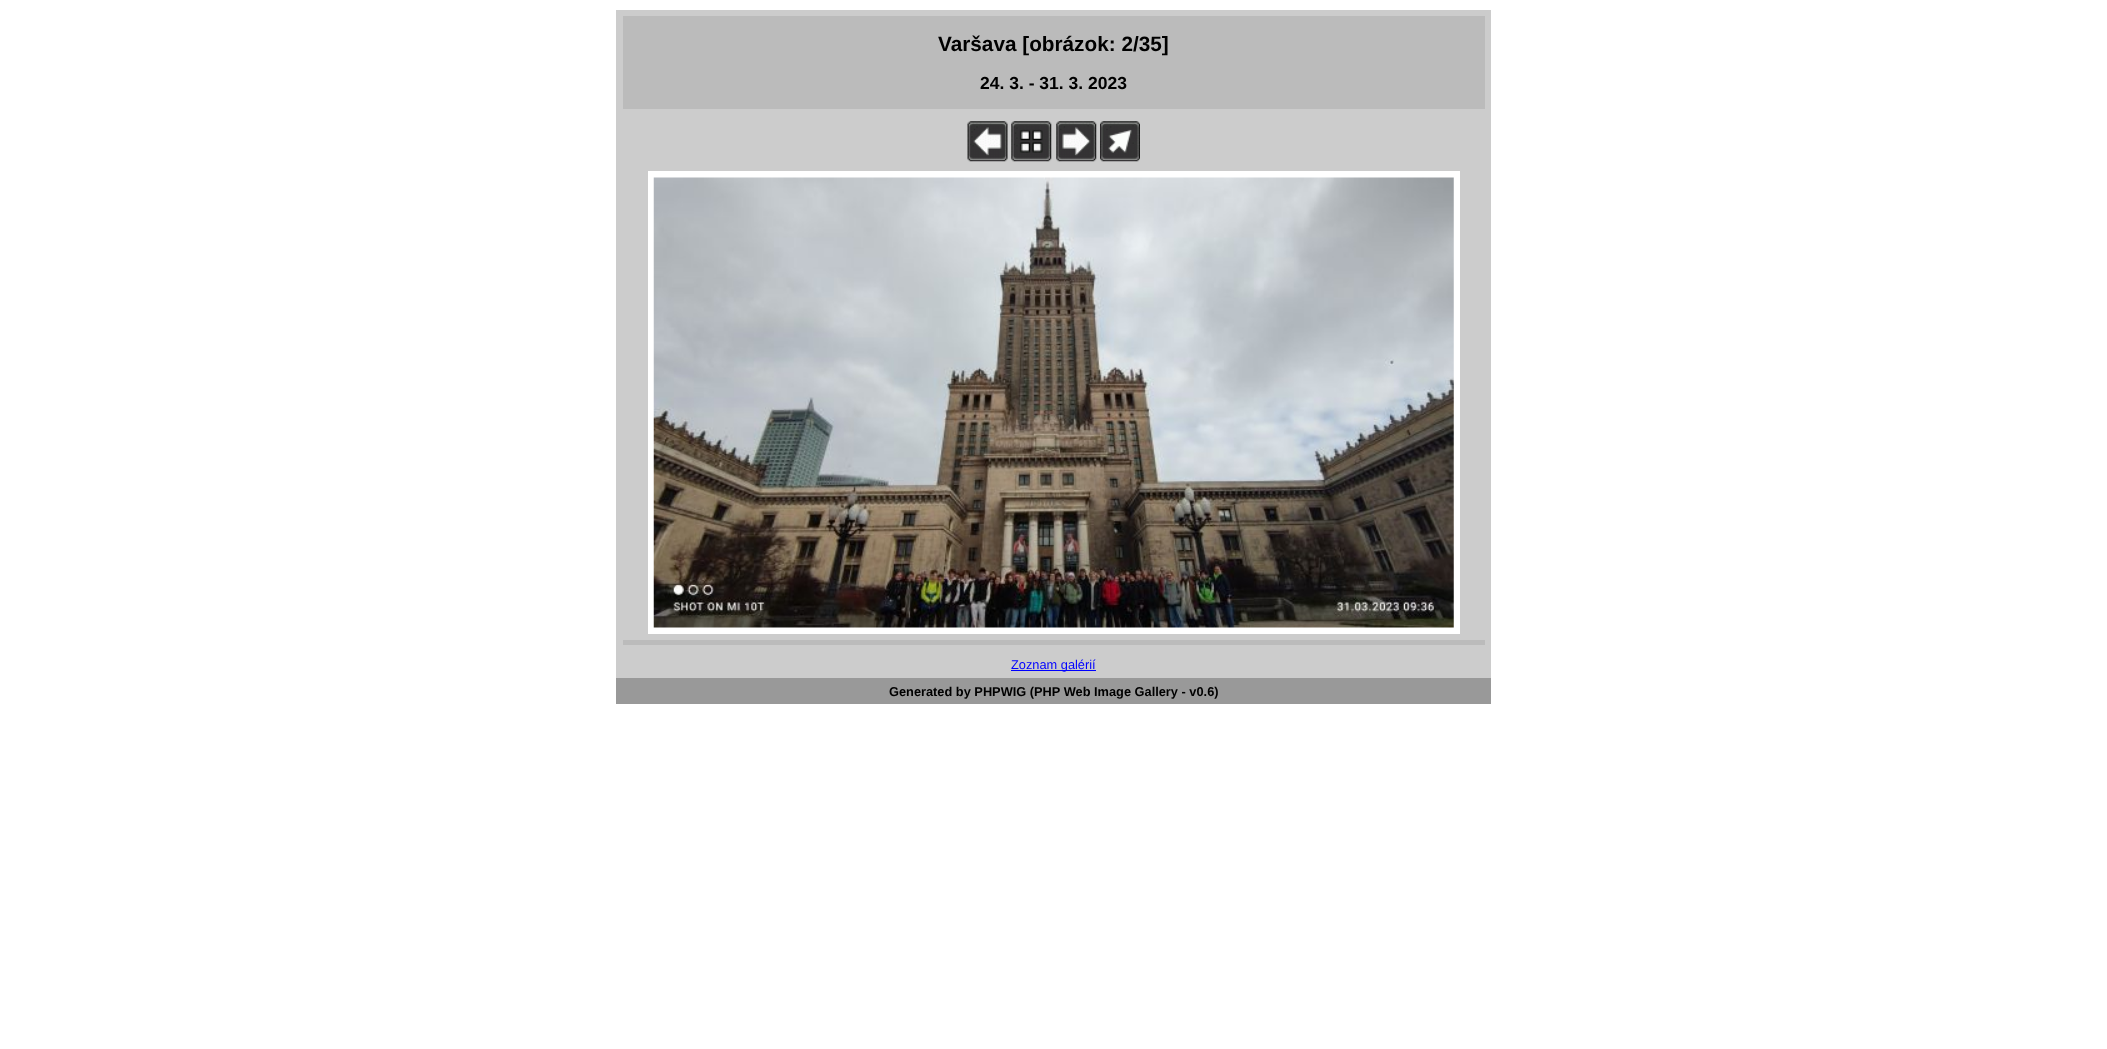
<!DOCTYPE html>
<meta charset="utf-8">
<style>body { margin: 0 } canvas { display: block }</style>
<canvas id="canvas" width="2107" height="1049"></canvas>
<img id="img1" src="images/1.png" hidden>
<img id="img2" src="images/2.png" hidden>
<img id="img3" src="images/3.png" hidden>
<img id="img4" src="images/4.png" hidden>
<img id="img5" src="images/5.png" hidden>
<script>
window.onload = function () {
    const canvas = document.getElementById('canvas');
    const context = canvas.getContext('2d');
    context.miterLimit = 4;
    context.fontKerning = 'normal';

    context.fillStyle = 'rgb(255, 255, 255)';
    context.fillRect(0, 0, 2107, 1049);
    context.fillStyle = 'rgb(204, 204, 204)';
    context.fillRect(616, 10, 875, 668);
    context.fillStyle = 'rgb(187, 187, 187)';
    context.fillRect(623, 16, 862, 93);
    context.drawImage(document.getElementById('img1'), 967, 121, 41, 41);
    context.drawImage(document.getElementById('img2'), 1011, 121, 41, 41);
    context.drawImage(document.getElementById('img3'), 1056, 121, 41, 41);
    context.drawImage(document.getElementById('img4'), 1100, 121, 40, 41);
    context.fillStyle = 'rgb(255, 255, 255)';
    context.fillRect(648, 171, 812, 463);
    context.drawImage(document.getElementById('img5'), 653, 177, 801, 451);
    context.fillStyle = 'rgb(187, 187, 187)';
    context.fillRect(623, 640, 862, 5);
    context.fillStyle = 'rgb(0, 0, 255)';
    context.fillRect(1011, 670, 85, 1);
    context.fillStyle = 'rgb(153, 153, 153)';
    context.fillRect(616, 678, 875, 26);
    context.font = 'bold 20.75px Liberation Sans';
    context.fillStyle = 'rgb(0, 0, 0)';
    context.fillText('Varšava [obrázok: 2/35]', 938, 51);
    context.font = 'bold 17.5px Liberation Sans';
    context.fillText('24. 3. - 31. 3. 2023', 980, 89);
    context.font = '12.8px Liberation Sans';
    context.fillStyle = 'rgb(0, 0, 255)';
    context.fillText('Zoznam galérií', 1011, 669);
    context.font = 'bold 12.8px Liberation Sans';
    context.fillStyle = 'rgb(0, 0, 0)';
    context.fillText('Generated by PHPWIG (PHP Web Image Gallery - v0.6)', 889, 696);
};
</script>
